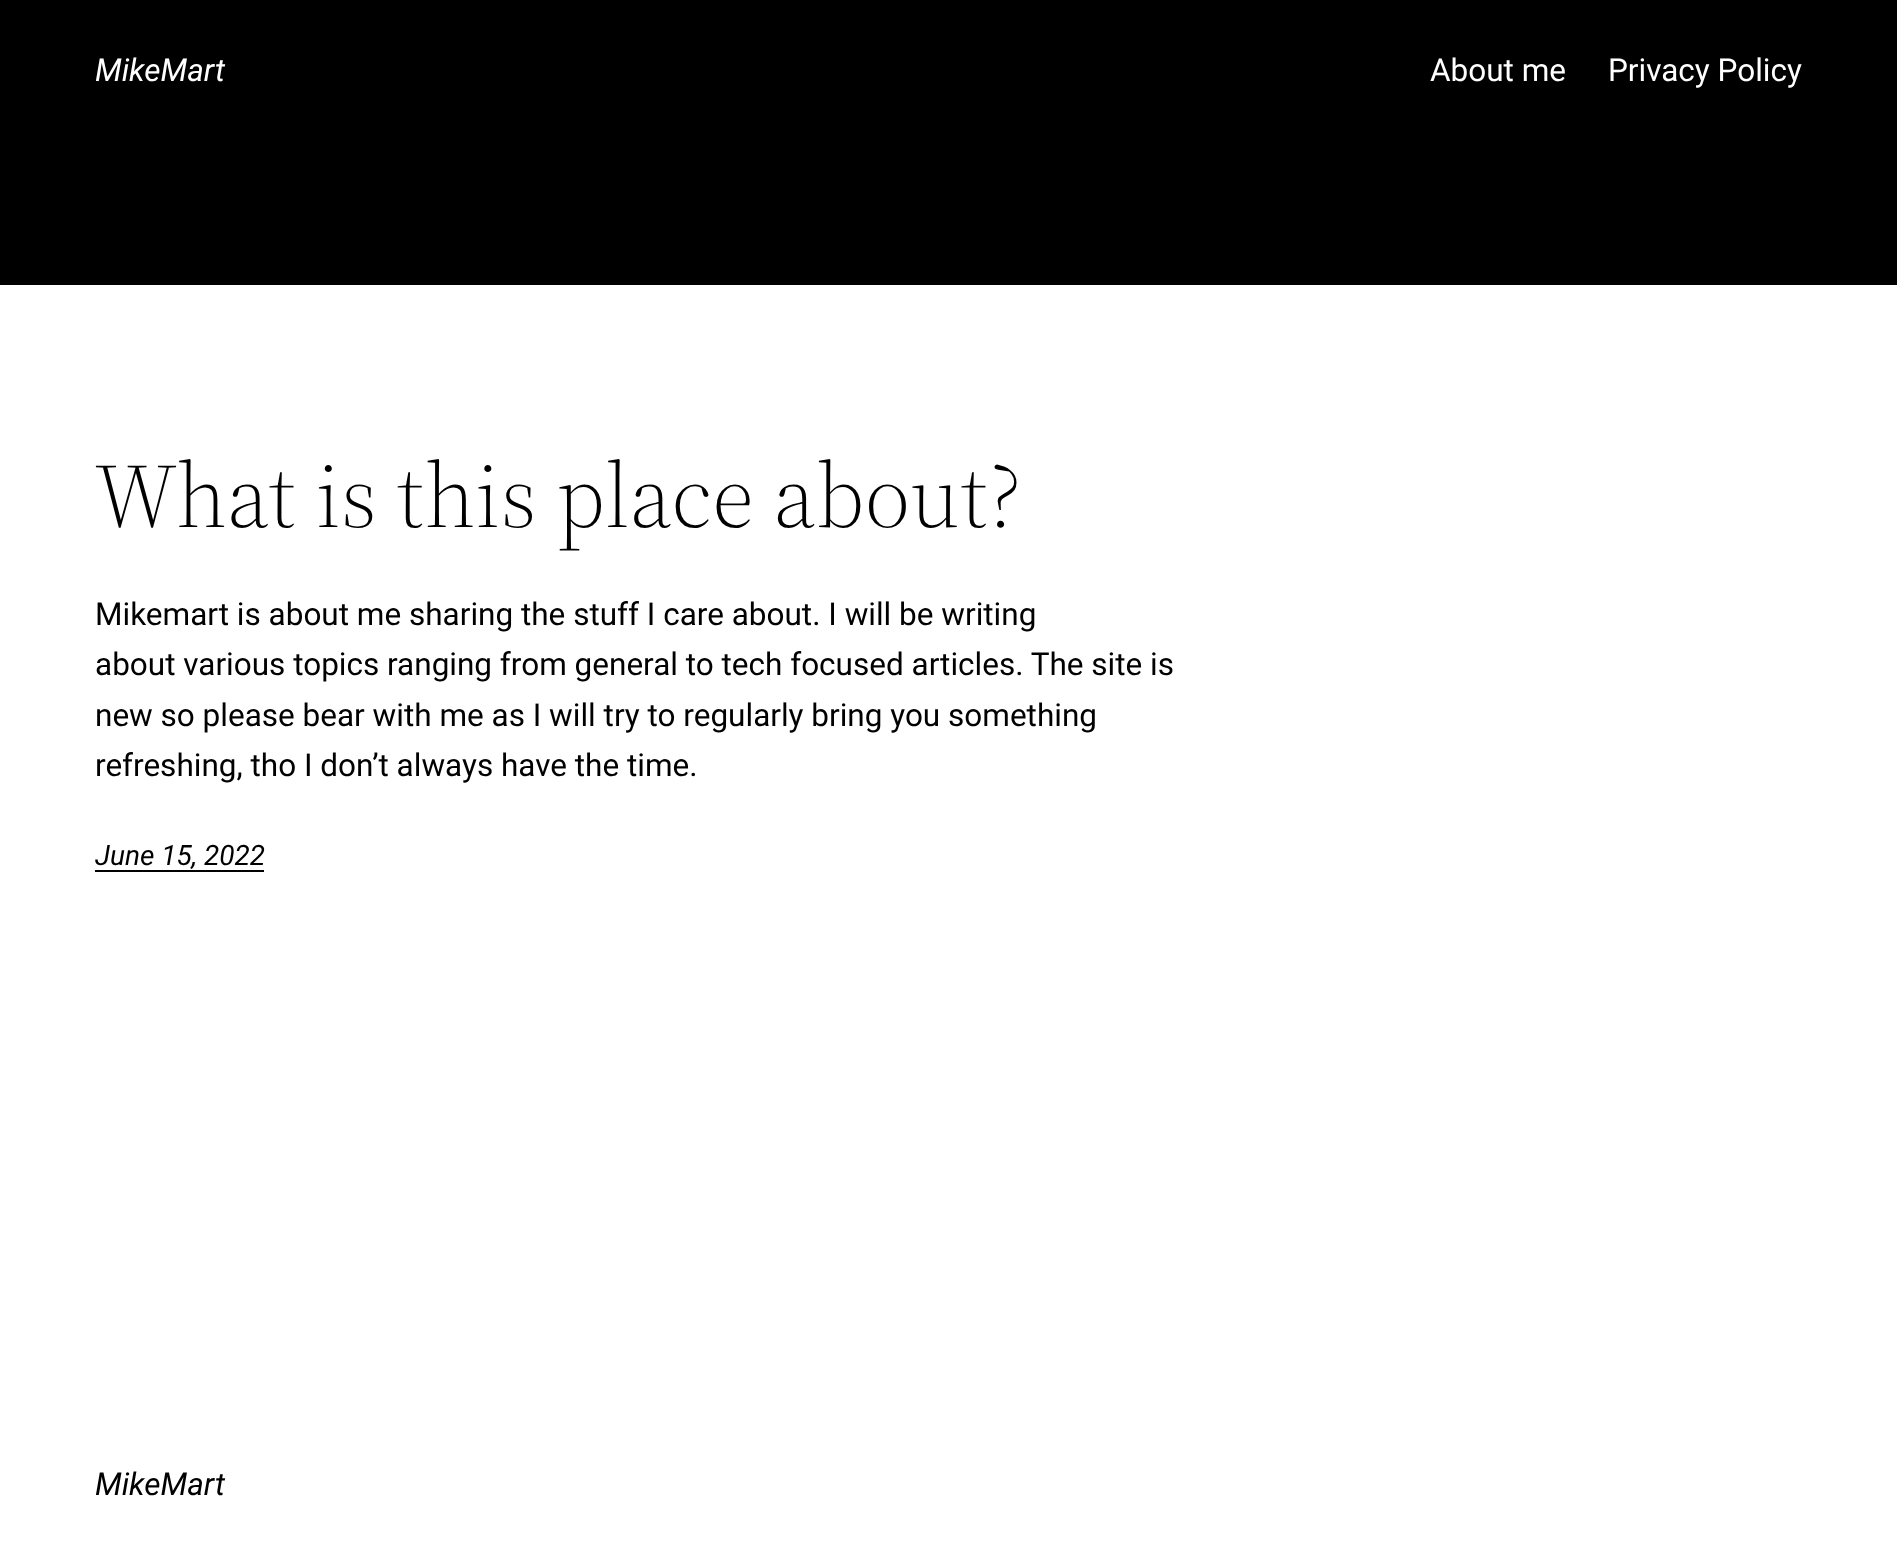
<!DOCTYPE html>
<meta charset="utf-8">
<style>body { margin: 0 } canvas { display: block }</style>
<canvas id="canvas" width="1897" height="1557"></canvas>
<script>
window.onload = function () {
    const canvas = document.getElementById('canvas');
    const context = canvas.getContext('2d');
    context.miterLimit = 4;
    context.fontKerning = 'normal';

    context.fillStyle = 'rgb(255, 255, 255)';
    context.fillRect(0, 0, 1897, 1557);
    context.fillStyle = 'rgb(0, 0, 0)';
    context.fillRect(0, 0, 1897, 285);
    context.fillRect(95, 870, 169, 2);
    context.font = 'italic 31.5px Roboto';
    context.fillStyle = 'rgb(255, 255, 255)';
    context.fillText('MikeMart', 95, 81);
    context.font = '31.5px Roboto';
    context.fillText('About me', 1430, 81);
    context.fillText('Privacy Policy', 1608, 81);
    context.font = '300 91px "Source Serif 4"';
    context.fillStyle = 'rgb(0, 0, 0)';
    context.fillText('What is this place about?', 95, 527);
    context.font = '31.5px Roboto';
    context.fillText('Mikemart is about me sharing the stuff I care about. I will be writing', 95, 625);
    context.fillText('about various topics ranging from general to tech focused articles. The site is', 95, 675);
    context.fillText('new so please bear with me as I will try to regularly bring you something', 95, 726);
    context.fillText('refreshing, tho I don’t always have the time.', 95, 776);
    context.font = 'italic 28px Roboto';
    context.fillText('June 15, 2022', 95, 865);
    context.font = 'italic 31.5px Roboto';
    context.fillText('MikeMart', 95, 1495);
};
</script>
